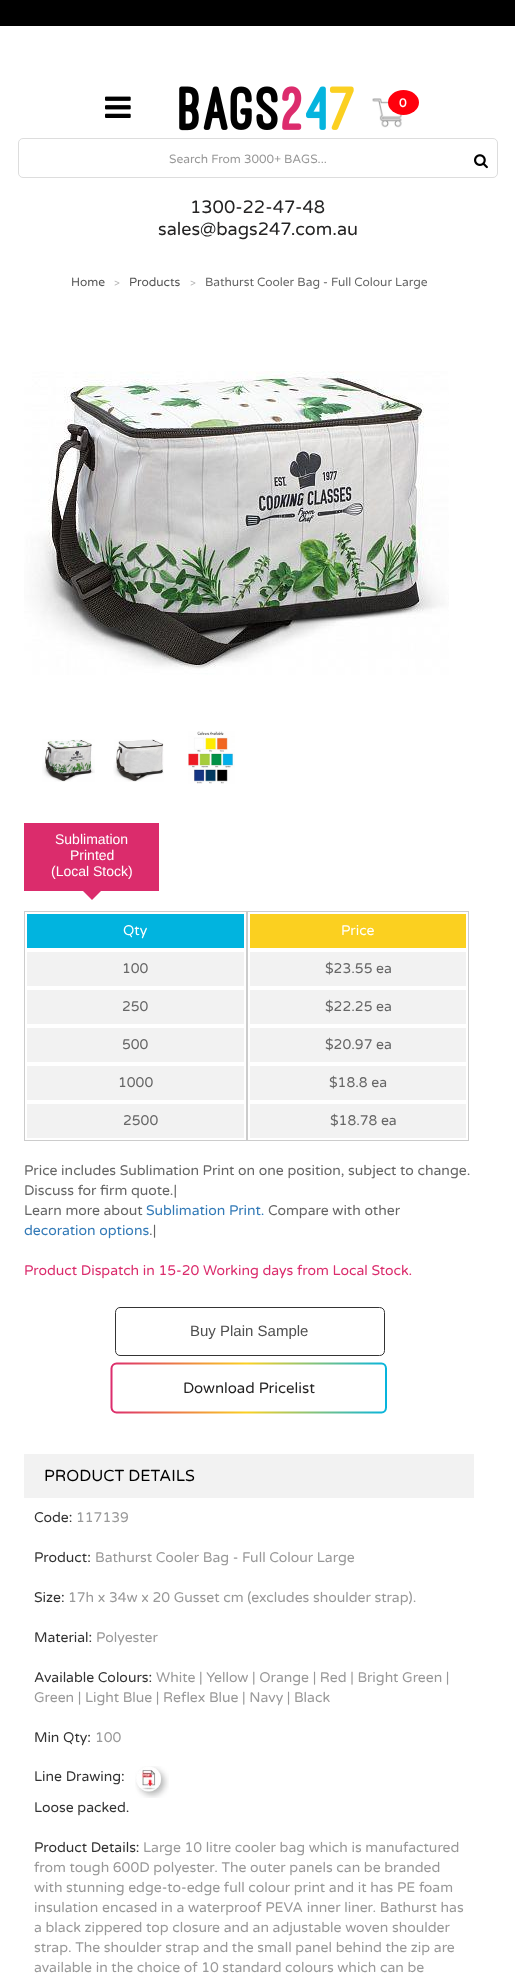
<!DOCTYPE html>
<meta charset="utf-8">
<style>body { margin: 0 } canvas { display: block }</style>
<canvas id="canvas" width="515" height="1974"></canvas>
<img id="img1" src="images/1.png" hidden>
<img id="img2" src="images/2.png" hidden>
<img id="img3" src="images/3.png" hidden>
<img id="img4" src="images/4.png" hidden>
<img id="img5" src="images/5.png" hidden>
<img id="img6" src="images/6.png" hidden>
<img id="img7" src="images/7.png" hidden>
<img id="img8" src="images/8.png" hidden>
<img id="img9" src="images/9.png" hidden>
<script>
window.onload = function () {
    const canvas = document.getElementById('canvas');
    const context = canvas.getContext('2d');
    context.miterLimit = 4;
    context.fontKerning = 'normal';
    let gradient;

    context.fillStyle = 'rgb(255, 255, 255)';
    context.fillRect(0, 0, 515, 1974);
    context.fillStyle = 'rgb(0, 0, 0)';
    context.fillRect(0, 0, 515, 26);
    context.drawImage(document.getElementById('img1'), 105, 96, 26, 22);
    context.drawImage(document.getElementById('img2'), 179, 86, 175, 45);
    context.drawImage(document.getElementById('img3'), 372, 98, 33, 30);
    context.fillStyle = 'rgb(255, 0, 13)';
    context.beginPath();
    context.ellipse(403.5, 102.5, 15.5, 12.5, 0, 0, 2 * Math.PI);
    context.fill();
    context.beginPath();
    context.roundRect(18.5, 138.5, 479, 39, 4.5);
    context.strokeStyle = 'rgb(221, 221, 221)';
    context.stroke();
    context.drawImage(document.getElementById('img4'), 474, 154, 14, 15);
    context.drawImage(document.getElementById('img5'), 24, 371, 425, 304);
    context.drawImage(document.getElementById('img6'), 42, 739, 53, 43);
    context.drawImage(document.getElementById('img7'), 113, 739, 51, 43);
    context.drawImage(document.getElementById('img8'), 188, 731, 47, 53);
    context.fillStyle = 'rgb(219, 44, 108)';
    context.fillRect(24, 823, 135, 68);
    context.beginPath();
    context.moveTo(83, 891);
    context.lineTo(101, 891);
    context.lineTo(92, 900);
    context.closePath();
    context.fill();
    context.strokeStyle = 'rgb(204, 204, 204)';
    context.strokeRect(24.5, 911.5, 222, 229);
    context.fillStyle = 'rgb(1, 180, 223)';
    context.fillRect(27, 914, 217, 34);
    context.fillStyle = 'rgb(242, 242, 242)';
    context.fillRect(27, 952, 217, 34);
    context.fillRect(27, 990, 217, 34);
    context.fillRect(27, 1028, 217, 34);
    context.fillRect(27, 1066, 217, 34);
    context.fillRect(27, 1104, 217, 34);
    context.strokeRect(247.5, 911.5, 221, 229);
    context.fillStyle = 'rgb(251, 208, 32)';
    context.fillRect(250, 914, 216, 34);
    context.fillStyle = 'rgb(242, 242, 242)';
    context.fillRect(250, 952, 216, 34);
    context.fillRect(250, 990, 216, 34);
    context.fillRect(250, 1028, 216, 34);
    context.fillRect(250, 1066, 216, 34);
    context.fillRect(250, 1104, 216, 34);
    context.beginPath();
    context.moveTo(379.5, 1355.5);
    context.lineTo(120, 1355.5);
    context.bezierCurveTo(117.5, 1355.5, 115.5, 1353.5, 115.5, 1350.5);
    context.lineTo(115.5, 1312.5);
    context.bezierCurveTo(115.5, 1309.5, 117.5, 1307.5, 120, 1307.5);
    context.lineTo(379.5, 1307.5);
    context.bezierCurveTo(382.5, 1307.5, 384.5, 1309.5, 384.5, 1312.5);
    context.lineTo(384.5, 1350.5);
    context.bezierCurveTo(384.5, 1353.5, 382.5, 1355.5, 379.5, 1355.5);
    context.closePath();
    context.strokeStyle = 'rgb(52, 52, 52)';
    context.stroke();
    context.beginPath();
    context.moveTo(381.5, 1412.5);
    context.lineTo(116.5, 1412.5);
    context.bezierCurveTo(114, 1412.5, 111.5, 1410.5, 111.5, 1407.5);
    context.lineTo(111.5, 1368.5);
    context.bezierCurveTo(111.5, 1365.5, 114, 1363.5, 116.5, 1363.5);
    context.lineTo(381.5, 1363.5);
    context.bezierCurveTo(384, 1363.5, 386, 1365.5, 386, 1368.5);
    context.lineTo(386, 1407.5);
    context.bezierCurveTo(386, 1410.5, 384, 1412.5, 381.5, 1412.5);
    context.closePath();
    gradient = context.createLinearGradient(111, 1388, 387, 1388);
    gradient.addColorStop(0, 'rgb(220, 44, 109)');
    gradient.addColorStop(0.49, 'rgb(251, 208, 33)');
    gradient.addColorStop(1, 'rgb(5, 180, 222)');
    context.strokeStyle = gradient;
    context.lineWidth = 2;
    context.stroke();
    context.fillRect(24, 1454, 450, 44);
    context.drawImage(document.getElementById('img9'), 135, 1766, 34, 32);
    context.font = 'bold 12px Varela Round';
    context.fillStyle = 'rgb(255, 255, 255)';
    context.fillText('0', 399, 107);
    context.font = '12px Varela Round';
    context.fillStyle = 'rgb(153, 153, 153)';
    context.fillText('Search From 3000+ BAGS...', 169, 163);
    context.font = '18px Varela Round';
    context.fillStyle = 'rgb(36, 35, 35)';
    context.fillText('1300-22-47-48', 190, 213);
    context.fillText('sales@bags247.com.au', 158, 235);
    context.font = '12px Varela Round';
    context.fillStyle = 'rgb(85, 85, 85)';
    context.fillText('Home', 71, 286);
    context.font = '10px Varela Round';
    context.fillStyle = 'rgb(179, 179, 179)';
    context.fillText('>', 114, 286);
    context.font = '12px Varela Round';
    context.fillStyle = 'rgb(85, 85, 85)';
    context.fillText('Products', 129, 286);
    context.font = '10px Varela Round';
    context.fillStyle = 'rgb(179, 179, 179)';
    context.fillText('>', 190, 286);
    context.font = '12px Varela Round';
    context.fillStyle = 'rgb(102, 102, 102)';
    context.fillText('Bathurst Cooler Bag - Full Colour Large', 205, 286);
    context.font = '14px Liberation Sans';
    context.fillStyle = 'rgb(255, 255, 255)';
    context.fillText('Sublimation', 55, 844);
    context.fillText('Printed', 70, 860);
    context.fillText('(Local Stock)', 51, 876);
    context.font = '14px Varela Round';
    context.fillText('Qty', 123, 935);
    context.fillStyle = 'rgb(102, 102, 102)';
    context.fillText('100', 122, 973);
    context.fillText('250', 122, 1011);
    context.fillText('500', 122, 1049);
    context.fillText('1000', 118, 1087);
    context.fillText('2500', 123, 1125);
    context.fillStyle = 'rgb(255, 255, 255)';
    context.fillText('Price', 341, 935);
    context.fillStyle = 'rgb(102, 102, 102)';
    context.fillText('$23.55 ea', 325, 973);
    context.fillText('$22.25 ea', 325, 1011);
    context.fillText('$20.97 ea', 325, 1049);
    context.fillText('$18.8 ea', 329, 1087);
    context.fillText('$18.78 ea', 330, 1125);
    context.fillText('Price includes Sublimation Print on one position, subject to change.', 24, 1175);
    context.fillText('Discuss for firm quote.|', 24, 1195);
    context.fillText('Learn more about', 24, 1215);
    context.fillStyle = 'rgb(51, 122, 183)';
    context.fillText('Sublimation Print.', 146, 1215);
    context.fillStyle = 'rgb(102, 102, 102)';
    context.fillText('Compare with other', 268, 1215);
    context.fillStyle = 'rgb(51, 122, 183)';
    context.fillText('decoration options', 24, 1235);
    context.fillStyle = 'rgb(102, 102, 102)';
    context.fillText('.|', 149, 1235);
    context.fillStyle = 'rgb(219, 44, 108)';
    context.fillText('Product Dispatch in 15-20 Working days from Local Stock.', 24, 1275);
    context.font = '15px Liberation Sans';
    context.fillStyle = 'rgb(79, 79, 79)';
    context.fillText('Buy Plain Sample', 190, 1336);
    context.font = '15px Varela Round';
    context.fillStyle = 'rgb(36, 35, 35)';
    context.fillText('Download Pricelist', 183, 1393);
    context.font = '16px Varela Round';
    context.fillStyle = 'rgb(0, 0, 0)';
    context.fillText('PRODUCT DETAILS', 44, 1481);
    context.font = '14px Varela Round';
    context.fillStyle = 'rgb(51, 51, 51)';
    context.fillText('Code:', 34, 1522);
    context.fillStyle = 'rgb(153, 153, 153)';
    context.fillText('117139', 76, 1522);
    context.fillStyle = 'rgb(51, 51, 51)';
    context.fillText('Product:', 34, 1562);
    context.fillStyle = 'rgb(153, 153, 153)';
    context.fillText('Bathurst Cooler Bag - Full Colour Large', 95, 1562);
    context.fillStyle = 'rgb(51, 51, 51)';
    context.fillText('Size:', 34, 1602);
    context.fillStyle = 'rgb(153, 153, 153)';
    context.fillText('17h x 34w x 20 Gusset cm (excludes shoulder strap).', 68, 1602);
    context.fillStyle = 'rgb(51, 51, 51)';
    context.fillText('Material:', 34, 1642);
    context.fillStyle = 'rgb(153, 153, 153)';
    context.fillText('Polyester', 96, 1642);
    context.fillStyle = 'rgb(51, 51, 51)';
    context.fillText('Available Colours:', 34, 1682);
    context.fillStyle = 'rgb(153, 153, 153)';
    context.fillText('White | Yellow | Orange | Red | Bright Green |', 156, 1682);
    context.fillText('Green | Light Blue | Reflex Blue | Navy | Black', 34, 1702);
    context.fillStyle = 'rgb(51, 51, 51)';
    context.fillText('Min Qty:', 34, 1742);
    context.fillStyle = 'rgb(153, 153, 153)';
    context.fillText('100', 95, 1742);
    context.fillStyle = 'rgb(51, 51, 51)';
    context.fillText('Line Drawing:', 34, 1781);
    context.fillText('Loose packed.', 34, 1812);
    context.fillText('Product Details:', 34, 1852);
    context.fillStyle = 'rgb(153, 153, 153)';
    context.fillText('Large 10 litre cooler bag which is manufactured', 143, 1852);
    context.fillText('from tough 600D polyester. The outer panels can be branded', 34, 1872);
    context.fillText('with stunning edge-to-edge full colour print and it has PE foam', 34, 1892);
    context.fillText('insulation encased in a waterproof PEVA inner liner. Bathurst has', 34, 1912);
    context.fillText('a black zippered top closure and an adjustable woven shoulder', 34, 1932);
    context.fillText('strap. The shoulder strap and the small panel behind the zip are', 34, 1952);
    context.fillText('available in the choice of 10 standard colours which can be', 34, 1972);
};
</script>
